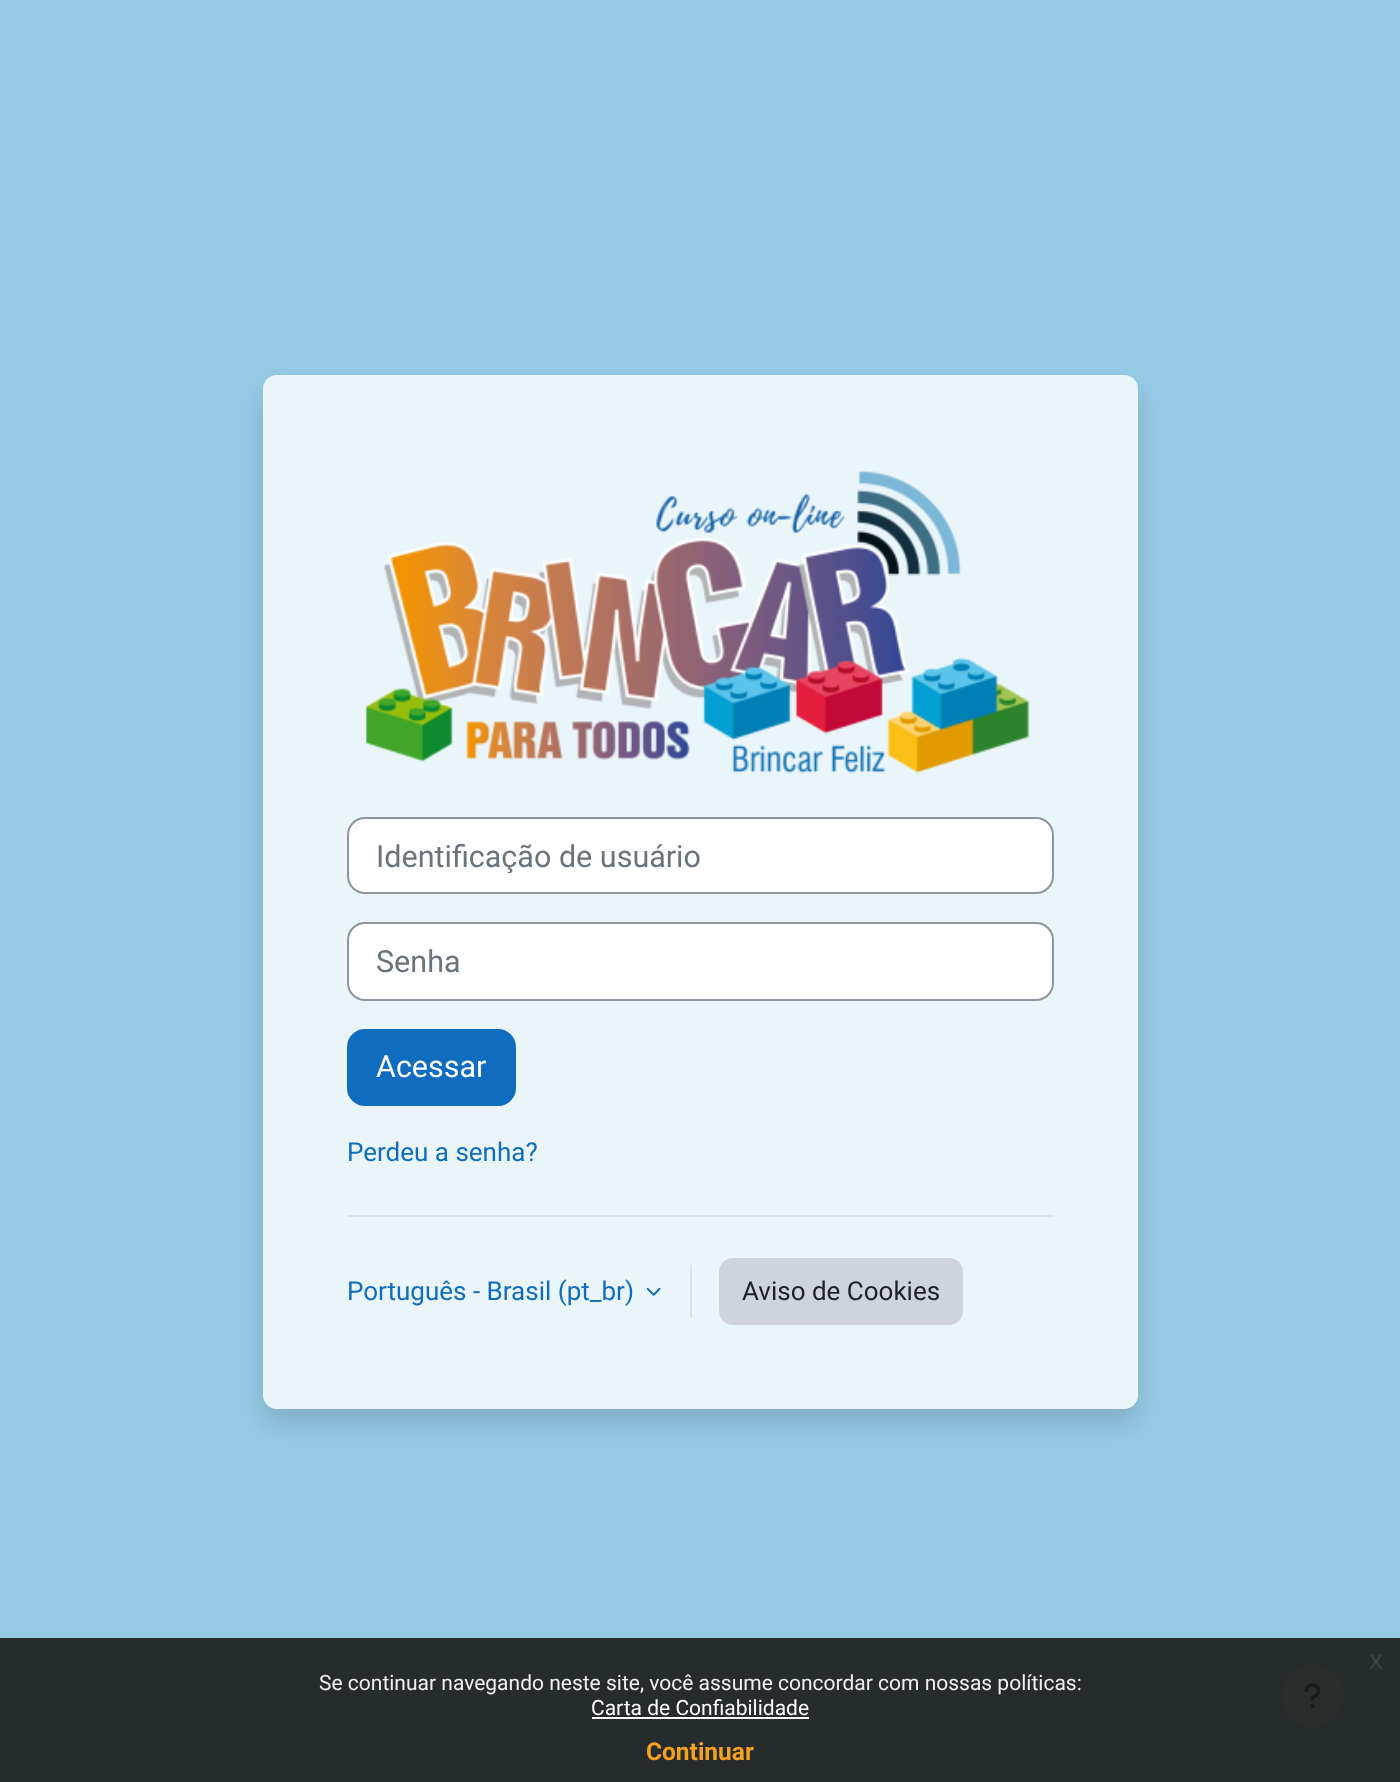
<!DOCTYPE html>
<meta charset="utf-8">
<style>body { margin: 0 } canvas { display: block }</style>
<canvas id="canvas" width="1400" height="1782"></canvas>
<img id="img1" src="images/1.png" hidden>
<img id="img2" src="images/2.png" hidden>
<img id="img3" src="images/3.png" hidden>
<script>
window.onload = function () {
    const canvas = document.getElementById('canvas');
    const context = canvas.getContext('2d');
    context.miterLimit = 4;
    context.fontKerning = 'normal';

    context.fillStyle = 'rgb(150, 203, 230)';
    context.fillRect(0, 0, 1400, 1782);
    context.fillStyle = 'rgb(38, 43, 46)';
    context.fillRect(0, 1638, 1400, 144);
    context.save();
    context.beginPath();
    context.moveTo(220, 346);
    context.lineTo(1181, 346);
    context.lineTo(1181, 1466);
    context.lineTo(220, 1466);
    context.closePath();
    context.moveTo(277, 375);
    context.lineTo(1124, 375);
    context.bezierCurveTo(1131.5, 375, 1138, 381.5, 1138, 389);
    context.lineTo(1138, 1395);
    context.bezierCurveTo(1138, 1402.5, 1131.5, 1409, 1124, 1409);
    context.lineTo(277, 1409);
    context.bezierCurveTo(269.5, 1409, 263, 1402.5, 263, 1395);
    context.lineTo(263, 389);
    context.bezierCurveTo(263, 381.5, 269.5, 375, 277, 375);
    context.closePath();
    context.clip('evenodd');
    context.fillStyle = 'rgba(0, 0, 0, 0.15)';
    context.filter = 'blur(14px)';
    context.beginPath();
    context.roundRect(263, 389, 875, 1034, 14);
    context.fill();
    context.filter = 'none';
    context.restore();
    context.fillStyle = 'rgba(255, 255, 255, 0.8)';
    context.beginPath();
    context.roundRect(263, 375, 875, 1034, 14);
    context.fill();
    context.drawImage(document.getElementById('img1'), 366, 470, 664, 304);
    context.fillStyle = 'rgb(255, 255, 255)';
    context.beginPath();
    context.roundRect(348, 818, 705, 75, 17);
    context.fill();
    context.strokeStyle = 'rgb(143, 149, 158)';
    context.lineWidth = 2;
    context.stroke();
    context.beginPath();
    context.roundRect(348, 923, 705, 77, 17);
    context.fill();
    context.stroke();
    context.fillStyle = 'rgb(15, 108, 191)';
    context.beginPath();
    context.roundRect(348, 1030, 167, 75, 17);
    context.fill();
    context.strokeStyle = 'rgb(15, 108, 191)';
    context.stroke();
    context.fillStyle = 'rgb(222, 226, 230)';
    context.fillRect(347, 1215, 707, 2);
    context.drawImage(document.getElementById('img2'), 646, 1287, 15, 9);
    context.fillRect(690, 1265, 2, 53);
    context.fillStyle = 'rgb(206, 212, 218)';
    context.beginPath();
    context.roundRect(720, 1259, 242, 65, 13);
    context.fill();
    context.strokeStyle = 'rgb(206, 212, 218)';
    context.stroke();
    context.fillStyle = 'rgb(255, 255, 255)';
    context.fillRect(592, 1717, 217, 2);
    context.fillStyle = 'rgb(43, 44, 44)';
    context.beginPath();
    context.arc(1312.5, 1695.5, 31.5, 0, 2 * Math.PI);
    context.fill();
    context.drawImage(document.getElementById('img3'), 1304, 1683, 17, 25);
    context.save();
    context.beginPath();
    context.rect(376, 838, 648, 35);
    context.clip();
    context.font = '30.5px Roboto';
    context.fillStyle = 'rgb(106, 115, 123)';
    context.fillText('Identificação de usuário', 376, 867);
    context.restore();
    context.font = '30.5px Roboto';
    context.fillStyle = 'rgb(106, 115, 123)';
    context.fillText('Senha', 376, 972);
    context.fillStyle = 'rgb(255, 255, 255)';
    context.fillText('Acessar', 376, 1077);
    context.font = '26px Roboto';
    context.fillStyle = 'rgb(15, 108, 191)';
    context.fillText('Perdeu a senha?', 347, 1161);
    context.fillText('Português - Brasil (pt_br)', 347, 1300);
    context.fillStyle = 'rgb(29, 33, 37)';
    context.fillText('Aviso de Cookies', 742, 1300);
    context.font = '28px Liberation Sans';
    context.fillStyle = 'rgb(62, 67, 69)';
    context.fillText('x', 1369, 1669);
    context.font = '21px Roboto';
    context.fillStyle = 'rgb(239, 239, 239)';
    context.fillText('Se continuar navegando neste site, você assume concordar com nossas políticas:', 319, 1690);
    context.fillStyle = 'rgb(255, 255, 255)';
    context.fillText('Carta de Confiabilidade', 591, 1715);
    context.font = 'bold 24.5px Roboto';
    context.fillStyle = 'rgb(246, 162, 29)';
    context.fillText('Continuar', 646, 1760);
};
</script>
